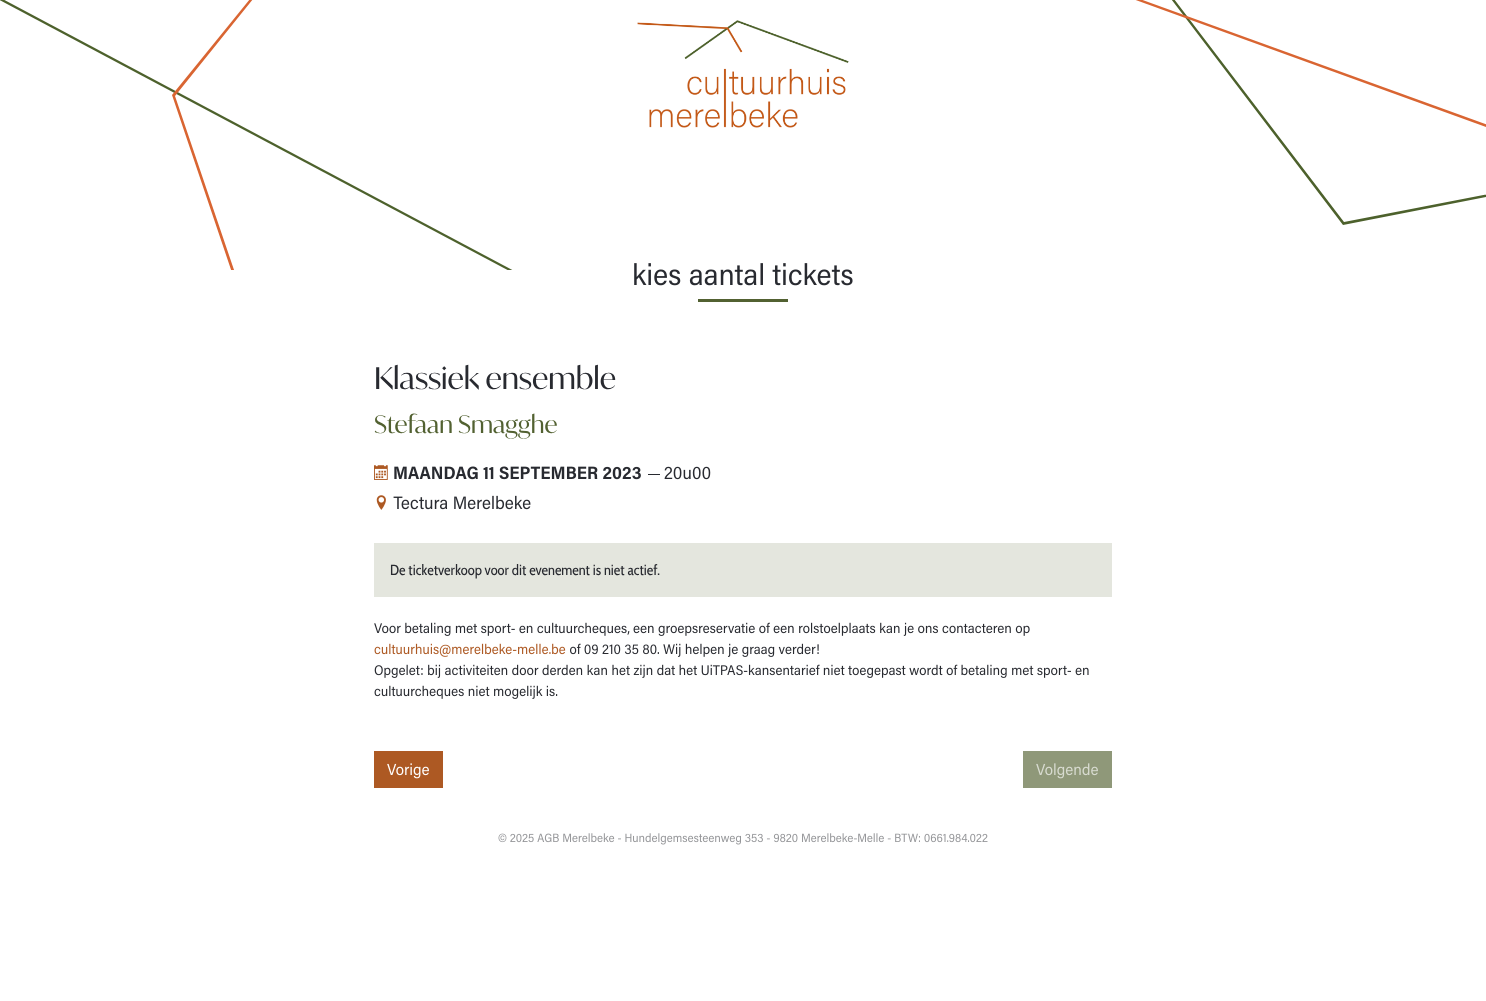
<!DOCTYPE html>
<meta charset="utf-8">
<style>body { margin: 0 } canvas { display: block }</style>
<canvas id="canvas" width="1486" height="1001"></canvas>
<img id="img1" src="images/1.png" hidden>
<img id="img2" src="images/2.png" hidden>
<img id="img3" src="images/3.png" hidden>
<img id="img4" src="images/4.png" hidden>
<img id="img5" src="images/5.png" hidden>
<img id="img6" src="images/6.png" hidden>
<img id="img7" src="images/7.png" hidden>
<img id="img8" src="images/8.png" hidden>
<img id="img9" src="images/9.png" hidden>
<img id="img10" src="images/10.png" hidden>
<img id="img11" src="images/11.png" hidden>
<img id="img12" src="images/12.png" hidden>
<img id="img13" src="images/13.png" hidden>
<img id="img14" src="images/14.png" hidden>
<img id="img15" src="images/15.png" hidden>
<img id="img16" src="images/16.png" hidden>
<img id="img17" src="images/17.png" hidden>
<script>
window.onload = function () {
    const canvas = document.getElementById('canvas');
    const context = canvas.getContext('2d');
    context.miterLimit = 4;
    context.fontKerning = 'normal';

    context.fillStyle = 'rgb(255, 255, 255)';
    context.fillRect(0, 0, 1486, 1001);
    context.fillStyle = 'rgb(77, 97, 44)';
    context.beginPath();
    context.moveTo(1343, 225);
    context.lineTo(1111, -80);
    context.lineTo(1113, -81);
    context.lineTo(1344, 222);
    context.lineTo(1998, 95);
    context.lineTo(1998, 97);
    context.closePath();
    context.fill();
    context.fillStyle = 'rgb(217, 101, 50)';
    context.beginPath();
    context.moveTo(951, -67);
    context.lineTo(952, -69);
    context.lineTo(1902, 275);
    context.lineTo(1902, 278);
    context.closePath();
    context.fill();
    context.save();
    context.beginPath();
    context.rect(0, 0, 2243, 270);
    context.clip();
    context.fillStyle = 'rgb(77, 97, 44)';
    context.beginPath();
    context.moveTo(-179, -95);
    context.lineTo(-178, -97);
    context.lineTo(691, 365);
    context.lineTo(690, 367);
    context.closePath();
    context.fill();
    context.fillStyle = 'rgb(217, 101, 50)';
    context.beginPath();
    context.moveTo(248, 320);
    context.lineTo(172, 95);
    context.lineTo(276, -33);
    context.lineTo(278, -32);
    context.lineTo(175, 96);
    context.lineTo(251, 320);
    context.closePath();
    context.fill();
    context.restore();
    context.drawImage(document.getElementById('img1'), 637, 20, 212, 108);
    context.drawImage(document.getElementById('img2'), 634, 263, 219, 23);
    context.fillStyle = 'rgb(82, 97, 49)';
    context.fillRect(698, 299, 90, 3);
    context.drawImage(document.getElementById('img3'), 374, 465, 14, 15);
    context.drawImage(document.getElementById('img4'), 394, 466, 247, 14);
    context.fillStyle = 'rgb(40, 42, 48)';
    context.fillRect(648, 474, 12, 1);
    context.drawImage(document.getElementById('img5'), 664, 466, 47, 14);
    context.drawImage(document.getElementById('img6'), 376, 495, 10, 15);
    context.drawImage(document.getElementById('img7'), 393, 495, 138, 15);
    context.fillStyle = 'rgb(228, 230, 222)';
    context.fillRect(374, 543, 738, 54);
    context.drawImage(document.getElementById('img8'), 374, 622, 256, 14);
    context.drawImage(document.getElementById('img9'), 633, 622, 397, 14);
    context.drawImage(document.getElementById('img10'), 374, 643, 192, 14);
    context.drawImage(document.getElementById('img11'), 570, 643, 89, 12);
    context.drawImage(document.getElementById('img12'), 663, 643, 156, 14);
    context.drawImage(document.getElementById('img13'), 374, 664, 715, 14);
    context.drawImage(document.getElementById('img14'), 374, 685, 184, 14);
    context.fillStyle = 'rgb(173, 89, 35)';
    context.fillRect(374, 751, 69, 37);
    context.drawImage(document.getElementById('img15'), 387, 763, 42, 16);
    context.fillStyle = 'rgb(143, 152, 121)';
    context.fillRect(1023, 751, 89, 37);
    context.drawImage(document.getElementById('img16'), 1036, 763, 62, 16);
    context.drawImage(document.getElementById('img17'), 498, 833, 490, 12);
    context.font = '30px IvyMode';
    context.fillStyle = 'rgb(40, 42, 48)';
    context.fillText('Klassiek ensemble', 374, 389);
    context.font = '24px IvyMode';
    context.fillStyle = 'rgb(82, 97, 49)';
    context.fillText('Stefaan Smagghe', 374, 433);
    context.font = '14.7px Cabin Condensed';
    context.fillStyle = 'rgb(40, 42, 48)';
    context.fillText('De ticketverkoop voor dit evenement is niet actief.', 390, 575);
};
</script>
